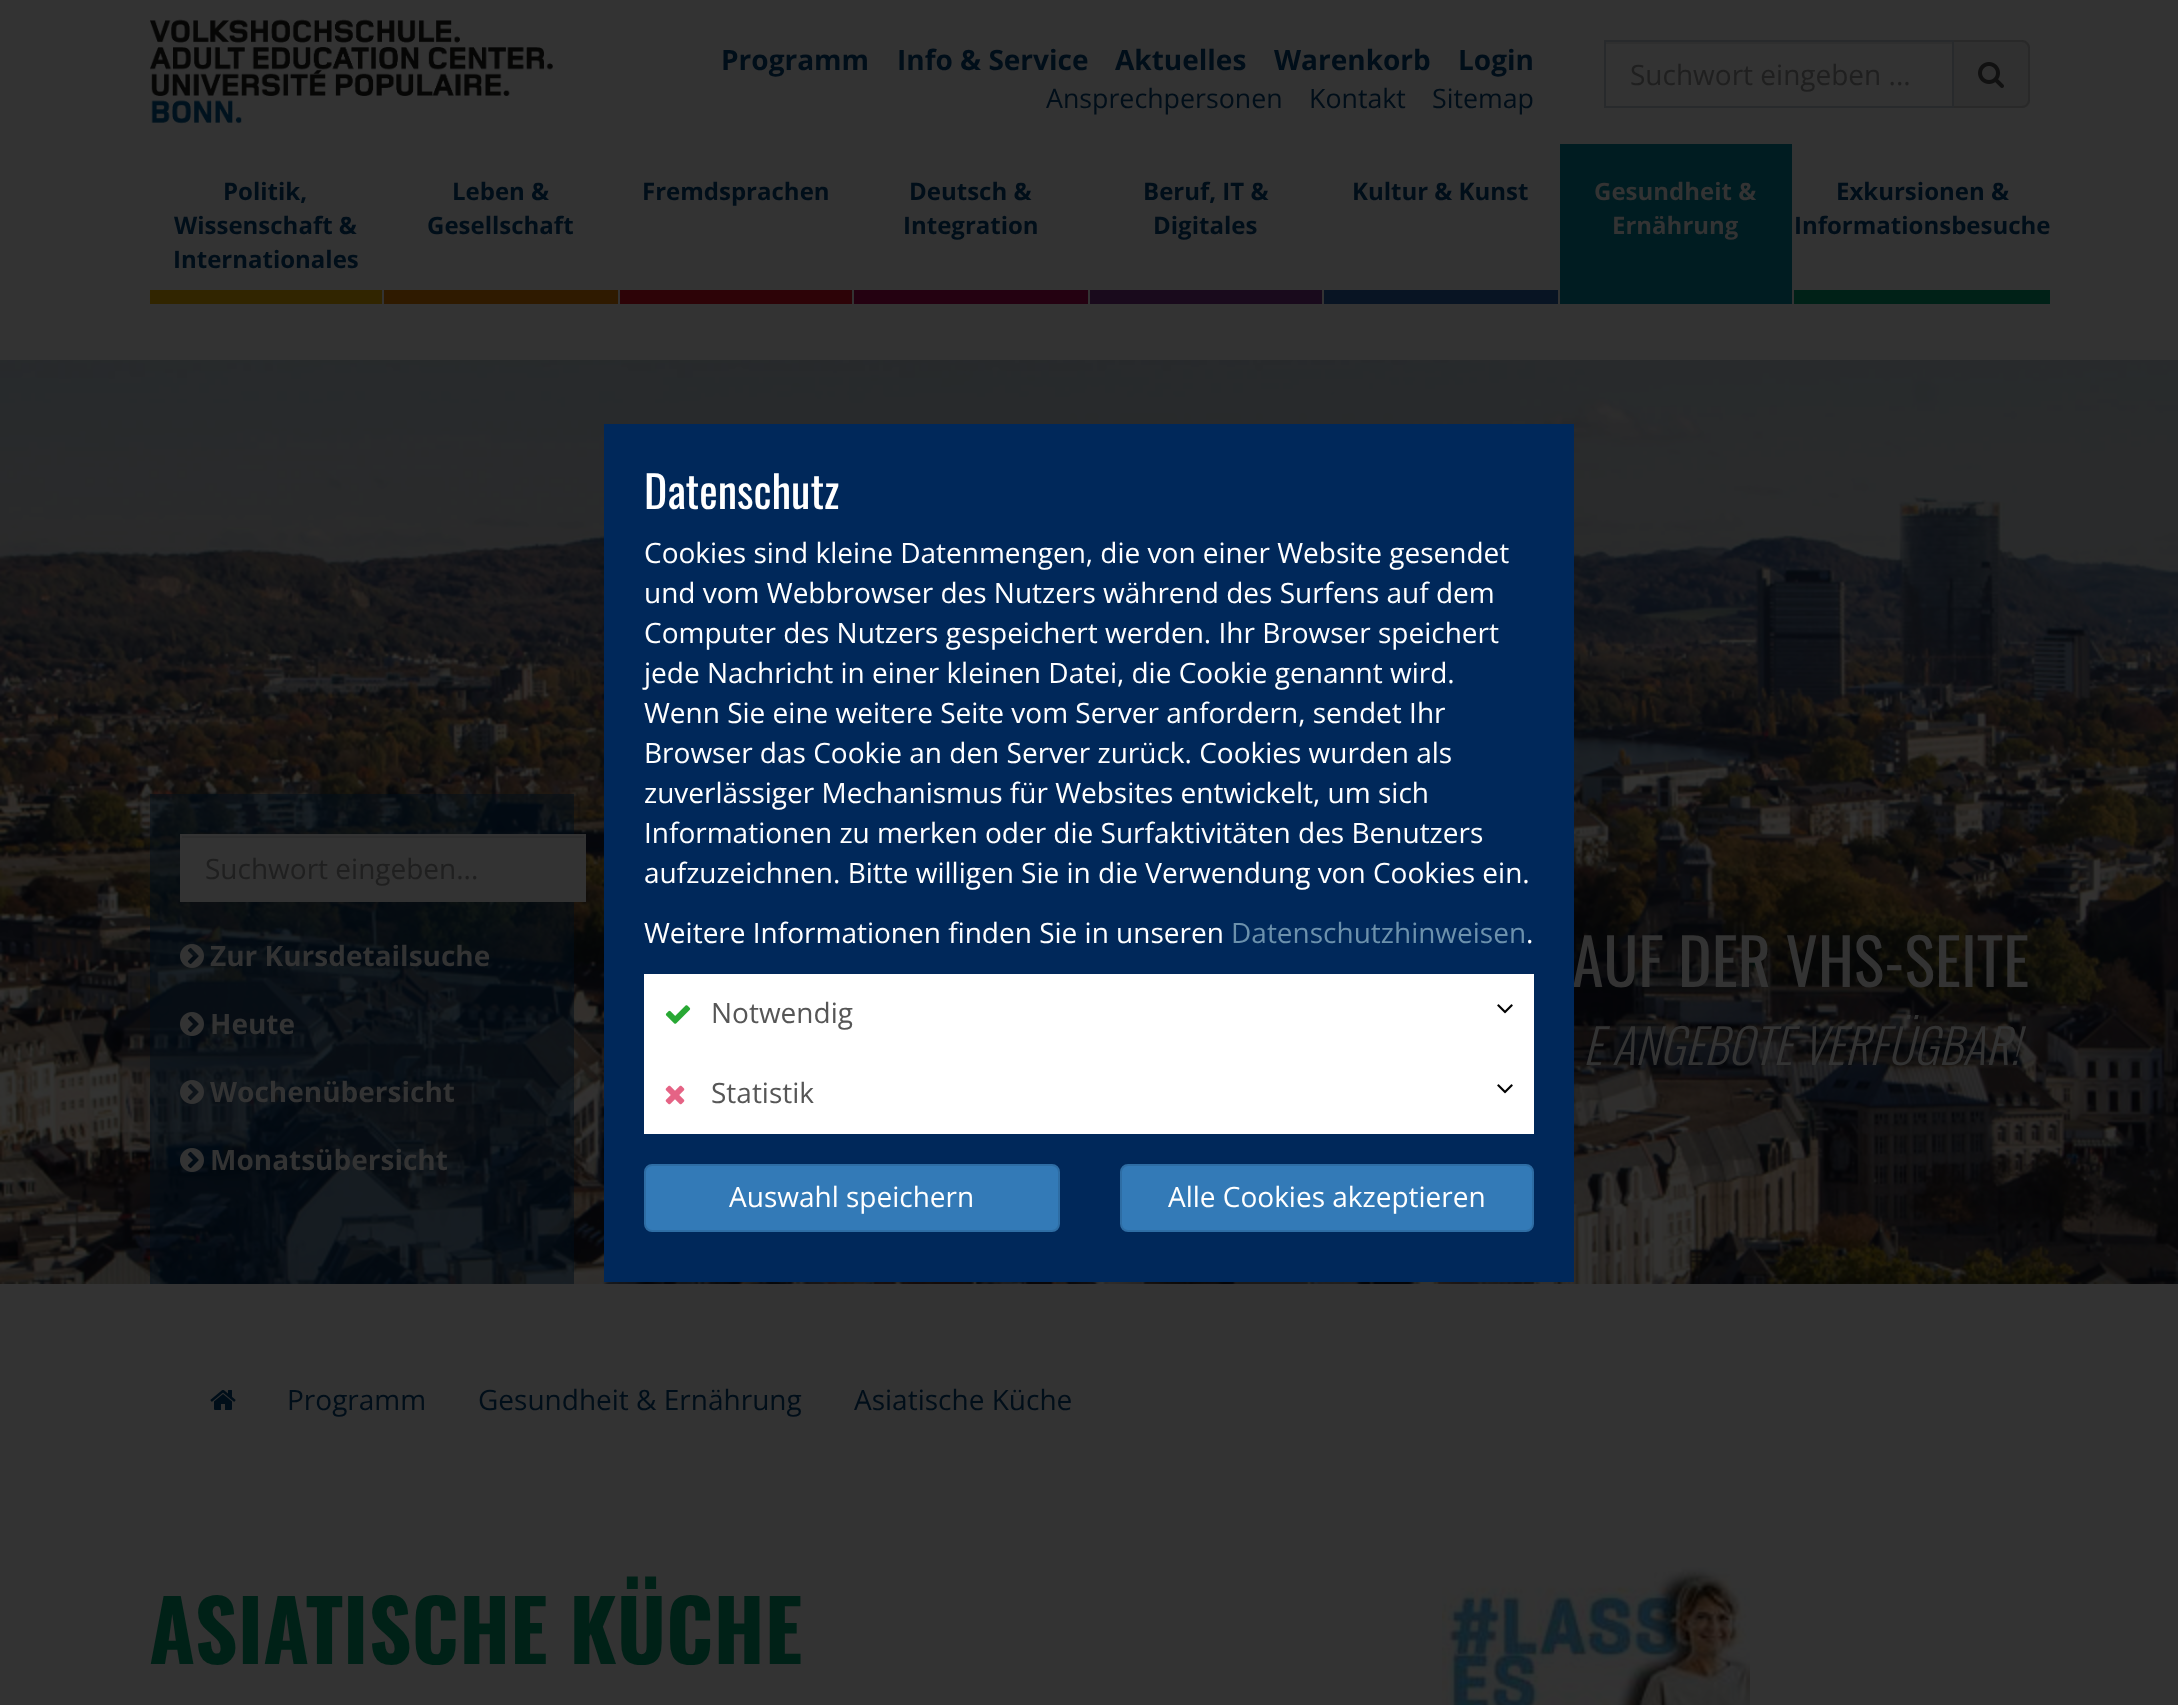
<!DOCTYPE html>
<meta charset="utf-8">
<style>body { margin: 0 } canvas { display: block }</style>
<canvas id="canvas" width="2178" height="1705"></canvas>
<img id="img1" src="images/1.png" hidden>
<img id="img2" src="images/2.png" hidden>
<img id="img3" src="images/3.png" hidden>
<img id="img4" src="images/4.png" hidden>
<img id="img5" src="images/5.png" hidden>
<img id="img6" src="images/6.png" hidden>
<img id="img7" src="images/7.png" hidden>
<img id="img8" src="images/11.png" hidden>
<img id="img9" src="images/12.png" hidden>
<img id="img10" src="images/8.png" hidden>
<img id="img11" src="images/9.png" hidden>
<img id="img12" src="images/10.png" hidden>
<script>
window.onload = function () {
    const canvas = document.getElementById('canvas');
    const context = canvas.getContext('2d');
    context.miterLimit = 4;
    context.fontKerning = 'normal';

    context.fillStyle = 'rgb(51, 51, 51)';
    context.fillRect(0, 0, 2178, 1705);
    context.drawImage(document.getElementById('img1'), 150, 19, 403, 105);
    context.fillStyle = 'rgb(47, 47, 47)';
    context.fillRect(1606, 42, 346, 2);
    context.strokeStyle = 'rgb(40, 42, 44)';
    context.lineWidth = 2;
    context.strokeRect(1605, 41, 348, 66);
    context.fillStyle = 'rgb(48, 48, 48)';
    context.beginPath();
    context.roundRect(1954, 40, 76, 68, [0, 8, 8, 0]);
    context.fill();
    context.fillStyle = 'rgb(41, 41, 41)';
    context.beginPath();
    context.moveTo(1954, 40);
    context.lineTo(2022, 40);
    context.bezierCurveTo(2026, 40, 2030, 44, 2030, 48);
    context.lineTo(2030, 100);
    context.bezierCurveTo(2030, 104, 2026, 108, 2022, 108);
    context.lineTo(1954, 108);
    context.closePath();
    context.moveTo(1954, 42);
    context.lineTo(2022, 42);
    context.bezierCurveTo(2025, 42, 2028, 45, 2028, 48);
    context.lineTo(2028, 100);
    context.bezierCurveTo(2028, 103, 2025, 106, 2022, 106);
    context.lineTo(1954, 106);
    context.closePath();
    context.fill('evenodd');
    context.drawImage(document.getElementById('img2'), 1978, 62, 26, 26);
    context.fillStyle = 'rgb(49, 37, 0)';
    context.fillRect(150, 290, 232, 14);
    context.fillStyle = 'rgb(47, 26, 0)';
    context.fillRect(384, 290, 234, 14);
    context.fillStyle = 'rgb(45, 3, 7)';
    context.fillRect(620, 290, 232, 14);
    context.fillStyle = 'rgb(36, 1, 17)';
    context.fillRect(854, 290, 234, 14);
    context.fillStyle = 'rgb(25, 10, 28)';
    context.fillRect(1090, 290, 232, 14);
    context.fillStyle = 'rgb(8, 20, 35)';
    context.fillRect(1324, 290, 234, 14);
    context.fillStyle = 'rgb(0, 28, 33)';
    context.fillRect(1560, 144, 232, 160);
    context.fillStyle = 'rgb(0, 33, 23)';
    context.fillRect(1794, 290, 256, 14);
    context.drawImage(document.getElementById('img3'), 0, 360, 2178, 924);
    context.fillStyle = 'rgba(0, 14, 26, 0.5)';
    context.fillRect(150, 794, 424, 490);
    context.fillStyle = 'rgb(51, 51, 51)';
    context.fillRect(180, 834, 406, 68);
    context.fillStyle = 'rgb(47, 47, 47)';
    context.fillRect(182, 836, 402, 2);
    context.drawImage(document.getElementById('img4'), 180, 944, 24, 24);
    context.drawImage(document.getElementById('img5'), 180, 1012, 24, 24);
    context.drawImage(document.getElementById('img6'), 180, 1080, 24, 24);
    context.drawImage(document.getElementById('img7'), 180, 1148, 24, 24);
    context.drawImage(document.getElementById('img8'), 210, 1390, 26, 20);
    context.drawImage(document.getElementById('img9'), 1442, 1567, 308, 138);
    context.font = 'bold 28px Open Sans';
    context.fillStyle = 'rgb(0, 14, 25)';
    context.fillText('Programm', 721, 70);
    context.fillText('Info & Service', 897, 70);
    context.fillText('Aktuelles', 1115, 70);
    context.fillText('Warenkorb', 1274, 70);
    context.fillText('Login', 1458, 70);
    context.font = '26.75px Open Sans';
    context.fillText('Ansprechpersonen', 1046, 108);
    context.fillText('Kontakt', 1309, 108);
    context.fillText('Sitemap', 1432, 108);
    context.font = '28px Open Sans';
    context.fillStyle = 'rgb(31, 31, 31)';
    context.fillText('Suchwort eingeben ...', 1630, 85);
    context.font = 'bold 24px Open Sans';
    context.fillStyle = 'rgb(0, 14, 25)';
    context.fillText('Politik,', 223, 200);
    context.fillText('Wissenschaft &', 174, 234);
    context.fillText('Internationales', 173, 268);
    context.fillText('Leben &', 452, 200);
    context.fillText('Gesellschaft', 427, 234);
    context.fillText('Fremdsprachen', 642, 200);
    context.fillText('Deutsch &', 909, 200);
    context.fillText('Integration', 903, 234);
    context.fillText('Beruf, IT &', 1143, 200);
    context.fillText('Digitales', 1153, 234);
    context.fillText('Kultur & Kunst', 1352, 200);
    context.fillStyle = 'rgb(51, 51, 51)';
    context.fillText('Gesundheit &', 1594, 200);
    context.fillText('Ernährung', 1612, 234);
    context.fillStyle = 'rgb(0, 14, 25)';
    context.fillText('Exkursionen &', 1836, 200);
    context.fillText('Informationsbesuche', 1794, 234);
    context.font = '28px Open Sans';
    context.fillStyle = 'rgb(31, 31, 31)';
    context.fillText('Suchwort eingeben...', 205, 879);
    context.font = 'bold 28px Open Sans';
    context.fillStyle = 'rgb(51, 51, 51)';
    context.fillText('Zur Kursdetailsuche', 210, 966);
    context.fillText('Heute', 210, 1034);
    context.fillText('Wochenübersicht', 210, 1102);
    context.fillText('Monatsübersicht', 210, 1170);
    context.font = '64px Oswald';
    context.fillText('AUF DER VHS-SEITE', 1572, 987);
    context.font = 'italic 300 48px Oswald';
    context.fillText('E ANGEBOTE VERFÜGBAR!', 1583, 1065);
    context.fillStyle = 'rgb(0, 40, 90)';
    context.fillRect(604, 424, 970, 858);
    context.font = '44px Oswald';
    context.fillStyle = 'rgb(255, 255, 255)';
    context.fillText('Datenschutz', 644, 509);
    context.font = '28px Open Sans';
    context.fillText('Cookies sind kleine Datenmengen, die von einer Website gesendet', 644, 563);
    context.fillText('und vom Webbrowser des Nutzers während des Surfens auf dem', 644, 603);
    context.fillText('Computer des Nutzers gespeichert werden. Ihr Browser speichert', 644, 643);
    context.fillText('jede Nachricht in einer kleinen Datei, die Cookie genannt wird.', 644, 683);
    context.fillText('Wenn Sie eine weitere Seite vom Server anfordern, sendet Ihr', 644, 723);
    context.fillText('Browser das Cookie an den Server zurück. Cookies wurden als', 644, 763);
    context.fillText('zuverlässiger Mechanismus für Websites entwickelt, um sich', 644, 803);
    context.fillText('Informationen zu merken oder die Surfaktivitäten des Benutzers', 644, 843);
    context.fillText('aufzuzeichnen. Bitte willigen Sie in die Verwendung von Cookies ein.', 644, 883);
    context.fillText('Weitere Informationen finden Sie in unseren', 644, 943);
    context.fillStyle = 'rgb(108, 145, 172)';
    context.fillText('Datenschutzhinweisen', 1231, 943);
    context.fillStyle = 'rgb(255, 255, 255)';
    context.fillText('.', 1526, 943);
    context.fillRect(644, 974, 890, 160);
    context.drawImage(document.getElementById('img10'), 665, 1005, 26, 19);
    context.fillStyle = 'rgb(86, 86, 86)';
    context.fillText('Notwendig', 711, 1023);
    context.drawImage(document.getElementById('img11'), 1497, 1004, 16, 10);
    context.drawImage(document.getElementById('img12'), 665, 1085, 20, 20);
    context.fillText('Statistik', 711, 1103);
    context.drawImage(document.getElementById('img11'), 1497, 1084, 16, 10);
    context.fillStyle = 'rgb(51, 122, 183)';
    context.beginPath();
    context.roundRect(645, 1165, 414, 66, 7);
    context.fill();
    context.strokeStyle = 'rgb(46, 109, 164)';
    context.stroke();
    context.fillStyle = 'rgb(255, 255, 255)';
    context.fillText('Auswahl speichern', 729, 1207);
    context.fillStyle = 'rgb(51, 122, 183)';
    context.beginPath();
    context.roundRect(1121, 1165, 412, 66, 7);
    context.fill();
    context.stroke();
    context.fillStyle = 'rgb(255, 255, 255)';
    context.fillText('Alle Cookies akzeptieren', 1168, 1207);
    context.fillStyle = 'rgb(0, 14, 25)';
    context.fillText('Programm', 287, 1410);
    context.fillText('Gesundheit & Ernährung', 478, 1410);
    context.fillText('Asiatische Küche', 854, 1410);
    context.font = 'bold 84px Oswald';
    context.fillStyle = 'rgb(0, 33, 23)';
    context.fillText('ASIATISCHE KÜCHE', 149, 1664);
};
</script>
